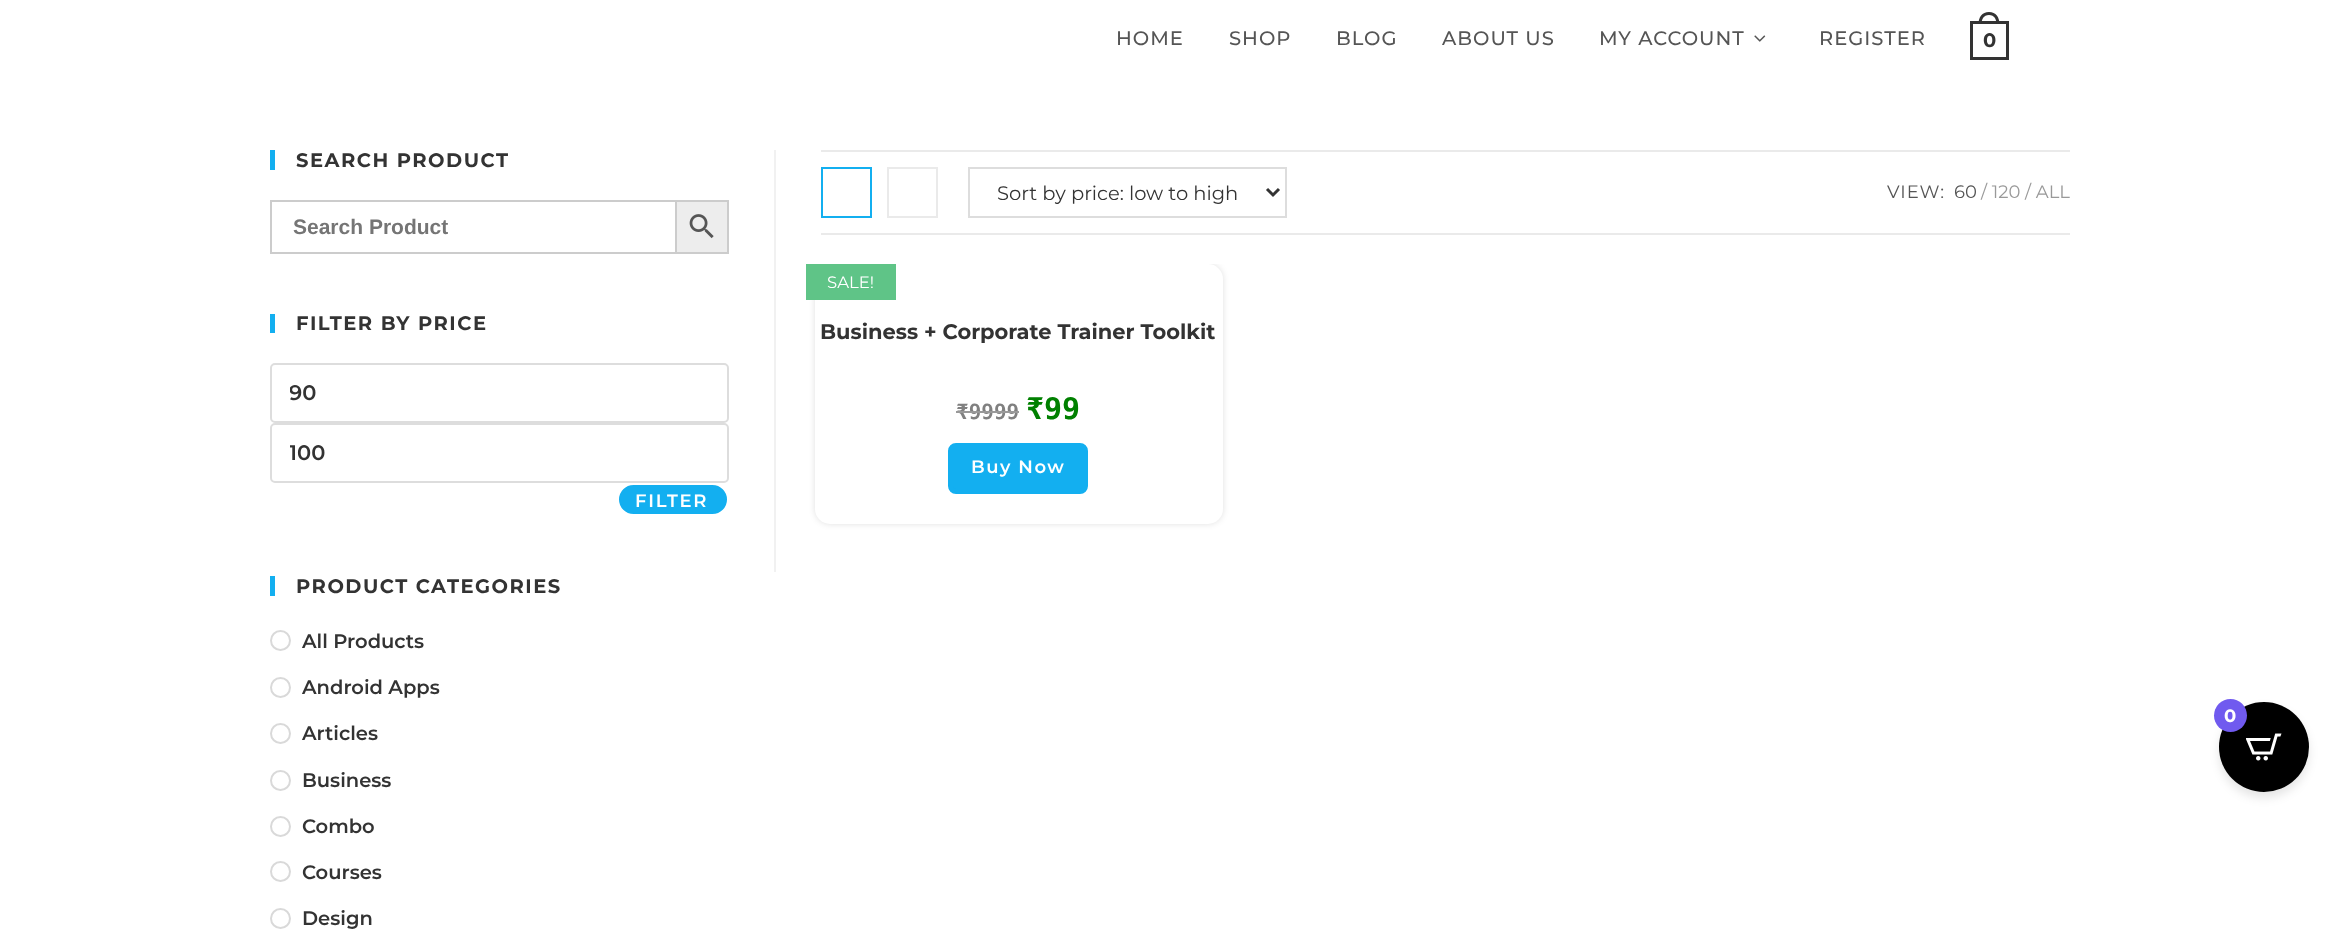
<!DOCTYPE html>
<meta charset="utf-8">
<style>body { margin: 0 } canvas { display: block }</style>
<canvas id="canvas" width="2338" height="942"></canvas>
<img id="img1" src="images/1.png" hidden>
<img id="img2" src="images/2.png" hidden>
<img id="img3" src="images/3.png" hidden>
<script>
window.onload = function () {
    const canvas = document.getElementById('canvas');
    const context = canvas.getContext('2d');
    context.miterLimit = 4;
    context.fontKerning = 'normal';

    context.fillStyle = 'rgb(255, 255, 255)';
    context.fillRect(0, 0, 2338, 942);
    context.drawImage(document.getElementById('img1'), 1754, 35, 12, 7);
    context.strokeStyle = 'rgb(51, 51, 51)';
    context.lineWidth = 3;
    context.strokeRect(1971.5, 22.5, 36, 36);
    context.fillStyle = 'rgb(51, 51, 51)';
    context.beginPath();
    context.moveTo(1989, 12);
    context.bezierCurveTo(1996, 12, 1999.5, 17.5, 1999.5, 24);
    context.lineTo(1978.5, 24);
    context.bezierCurveTo(1978.5, 17.5, 1982, 12, 1989, 12);
    context.closePath();
    context.moveTo(1989, 15);
    context.bezierCurveTo(1994.5, 15, 1996.5, 19.5, 1996.5, 24);
    context.lineTo(1981.5, 24);
    context.bezierCurveTo(1981.5, 19.5, 1983.5, 15, 1989, 15);
    context.closePath();
    context.fill('evenodd');
    context.fillStyle = 'rgb(19, 175, 240)';
    context.fillRect(270, 150, 5, 20);
    context.fillStyle = 'rgb(204, 204, 204)';
    context.fillRect(270, 200, 405, 2);
    context.fillRect(270, 252, 405, 2);
    context.fillRect(270, 200, 2, 54);
    context.fillStyle = 'rgb(237, 237, 237)';
    context.beginPath();
    context.rect(676, 201, 52, 52);
    context.fill();
    context.strokeStyle = 'rgb(204, 204, 204)';
    context.lineWidth = 2;
    context.stroke();
    context.drawImage(document.getElementById('img2'), 689, 214, 25, 25);
    context.fillStyle = 'rgb(19, 175, 240)';
    context.fillRect(270, 314, 5, 19);
    context.beginPath();
    context.roundRect(271, 364, 457, 58, 4);
    context.strokeStyle = 'rgb(221, 221, 221)';
    context.stroke();
    context.beginPath();
    context.roundRect(271, 424, 457, 58, 4);
    context.stroke();
    context.beginPath();
    context.roundRect(618, 484, 110, 31, 15.5);
    context.fill();
    context.strokeStyle = 'rgb(255, 255, 255)';
    context.stroke();
    context.fillRect(270, 576, 5, 20);
    context.beginPath();
    context.arc(280.5, 640.5, 9.5, 0, 2 * Math.PI);
    context.strokeStyle = 'rgb(217, 217, 217)';
    context.stroke();
    context.beginPath();
    context.arc(280.5, 687.5, 9.5, 0, 2 * Math.PI);
    context.stroke();
    context.beginPath();
    context.arc(280.5, 733.5, 9.5, 0, 2 * Math.PI);
    context.stroke();
    context.beginPath();
    context.arc(280.5, 780.5, 9.5, 0, 2 * Math.PI);
    context.stroke();
    context.beginPath();
    context.arc(280.5, 826.5, 9.5, 0, 2 * Math.PI);
    context.stroke();
    context.beginPath();
    context.arc(280.5, 871.5, 9.5, 0, 2 * Math.PI);
    context.stroke();
    context.beginPath();
    context.arc(280.5, 918.5, 9.5, 0, 2 * Math.PI);
    context.stroke();
    context.fillStyle = 'rgb(241, 241, 241)';
    context.fillRect(774, 150, 2, 422);
    context.fillStyle = 'rgb(234, 234, 234)';
    context.fillRect(821, 150, 1249, 2);
    context.fillRect(821, 233, 1249, 2);
    context.strokeStyle = 'rgb(19, 175, 240)';
    context.strokeRect(822, 168, 49, 49);
    context.strokeStyle = 'rgb(234, 234, 234)';
    context.strokeRect(888, 168, 49, 49);
    context.strokeStyle = 'rgb(221, 221, 221)';
    context.strokeRect(969, 168, 317, 49);
    context.beginPath();
    context.moveTo(1267, 189);
    context.lineTo(1273, 195);
    context.lineTo(1279, 189);
    context.strokeStyle = 'rgb(51, 51, 51)';
    context.lineWidth = 3;
    context.stroke();
    context.save();
    context.beginPath();
    context.rect(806, 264, 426, 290);
    context.clip();
    context.fillStyle = 'rgba(0, 0, 0, 0.12)';
    context.filter = 'blur(3px)';
    context.beginPath();
    context.roundRect(815, 264, 408, 260, 15);
    context.fill();
    context.filter = 'none';
    context.restore();
    context.fillStyle = 'rgb(255, 255, 255)';
    context.beginPath();
    context.roundRect(815, 264, 408, 260, 15);
    context.fill();
    context.fillStyle = 'rgb(95, 196, 135)';
    context.fillRect(806, 264, 90, 36);
    context.fillStyle = 'rgb(19, 175, 240)';
    context.beginPath();
    context.roundRect(950.5, 445.5, 135, 46, 5.5);
    context.fill();
    context.strokeStyle = 'rgb(19, 175, 240)';
    context.lineWidth = 5;
    context.stroke();
    context.fillStyle = 'rgba(0, 0, 0, 0.1)';
    context.filter = 'blur(5px)';
    context.beginPath();
    context.roundRect(2219, 708, 90, 90, 45);
    context.fill();
    context.filter = 'none';
    context.fillStyle = 'rgb(0, 0, 0)';
    context.beginPath();
    context.arc(2264, 747, 45, 0, 2 * Math.PI);
    context.fill();
    context.fillStyle = 'rgb(112, 90, 239)';
    context.beginPath();
    context.arc(2230.5, 715.5, 16.5, 0, 2 * Math.PI);
    context.fill();
    context.drawImage(document.getElementById('img3'), 2246, 733, 36, 28);
    context.letterSpacing = '1px';
    context.font = '500 19.5px Montserrat';
    context.fillStyle = 'rgb(85, 85, 85)';
    context.fillText('HOME', 1116, 45);
    context.fillText('SHOP', 1229, 45);
    context.fillText('BLOG', 1336, 45);
    context.fillText('ABOUT US', 1442, 45);
    context.fillText('MY ACCOUNT', 1599, 45);
    context.fillText('REGISTER', 1819, 45);
    context.letterSpacing = '0px';
    context.font = 'bold 19.5px Montserrat';
    context.fillStyle = 'rgb(51, 51, 51)';
    context.fillText('0', 1983, 47);
    context.letterSpacing = '1.5px';
    context.fillText('SEARCH PRODUCT', 296, 167);
    context.letterSpacing = '0px';
    context.font = 'bold 21px Liberation Sans';
    context.fillStyle = 'rgb(117, 117, 117)';
    context.fillText('Search Product', 293, 234);
    context.letterSpacing = '1.5px';
    context.font = 'bold 19.5px Montserrat';
    context.fillStyle = 'rgb(51, 51, 51)';
    context.fillText('FILTER BY PRICE', 296, 330);
    context.save();
    context.beginPath();
    context.rect(290, 374, 420, 39);
    context.clip();
    context.letterSpacing = '0px';
    context.font = '600 21px Montserrat';
    context.fillText('90', 289, 400);
    context.restore();
    context.save();
    context.beginPath();
    context.rect(290, 434, 420, 39);
    context.clip();
    context.letterSpacing = '0px';
    context.font = '600 21px Montserrat';
    context.fillText('100', 289, 460);
    context.restore();
    context.letterSpacing = '1.75px';
    context.font = '600 18px Montserrat';
    context.fillStyle = 'rgb(255, 255, 255)';
    context.fillText('FILTER', 635, 507);
    context.letterSpacing = '1.5px';
    context.font = 'bold 19.5px Montserrat';
    context.fillStyle = 'rgb(51, 51, 51)';
    context.fillText('PRODUCT CATEGORIES', 296, 593);
    context.letterSpacing = '0px';
    context.font = '600 19.5px Montserrat';
    context.fillText('All Products', 302, 648);
    context.fillText('Android Apps', 302, 694);
    context.fillText('Articles', 302, 740);
    context.fillText('Business', 302, 787);
    context.fillText('Combo', 302, 833);
    context.fillText('Courses', 302, 879);
    context.fillText('Design', 302, 925);
    context.font = '19.5px Montserrat';
    context.fillText('Sort by price: low to high', 997, 200);
    context.letterSpacing = '1px';
    context.font = '18px Montserrat';
    context.fillStyle = 'rgb(85, 85, 85)';
    context.fillText('VIEW:', 1887, 198);
    context.letterSpacing = '0px';
    context.fillText('60', 1954, 198);
    context.fillStyle = 'rgb(153, 153, 153)';
    context.fillText('/ 120 / ALL', 1981, 198);
    context.font = '16.5px Montserrat';
    context.fillStyle = 'rgb(255, 255, 255)';
    context.fillText('SALE!', 827, 288);
    context.font = 'bold 21px Montserrat';
    context.fillStyle = 'rgb(51, 51, 51)';
    context.fillText('Business + Corporate Trainer Toolkit', 820, 339);
    context.font = 'bold 21px DejaVu Sans Mono';
    context.fillStyle = 'rgb(128, 128, 128)';
    context.fillText('₹9999', 956, 419);
    context.fillStyle = 'rgb(153, 153, 153)';
    context.fillRect(956, 411, 63, 2);
    context.font = 'bold 30px DejaVu Sans Mono';
    context.fillStyle = 'rgb(0, 128, 0)';
    context.fillText('₹99', 1026, 419);
    context.letterSpacing = '1.5px';
    context.font = '600 18px Montserrat';
    context.fillStyle = 'rgb(255, 255, 255)';
    context.fillText('Buy Now', 971, 473);
    context.letterSpacing = '0px';
    context.font = 'bold 18px Montserrat';
    context.fillText('0', 2224, 722);
};
</script>
